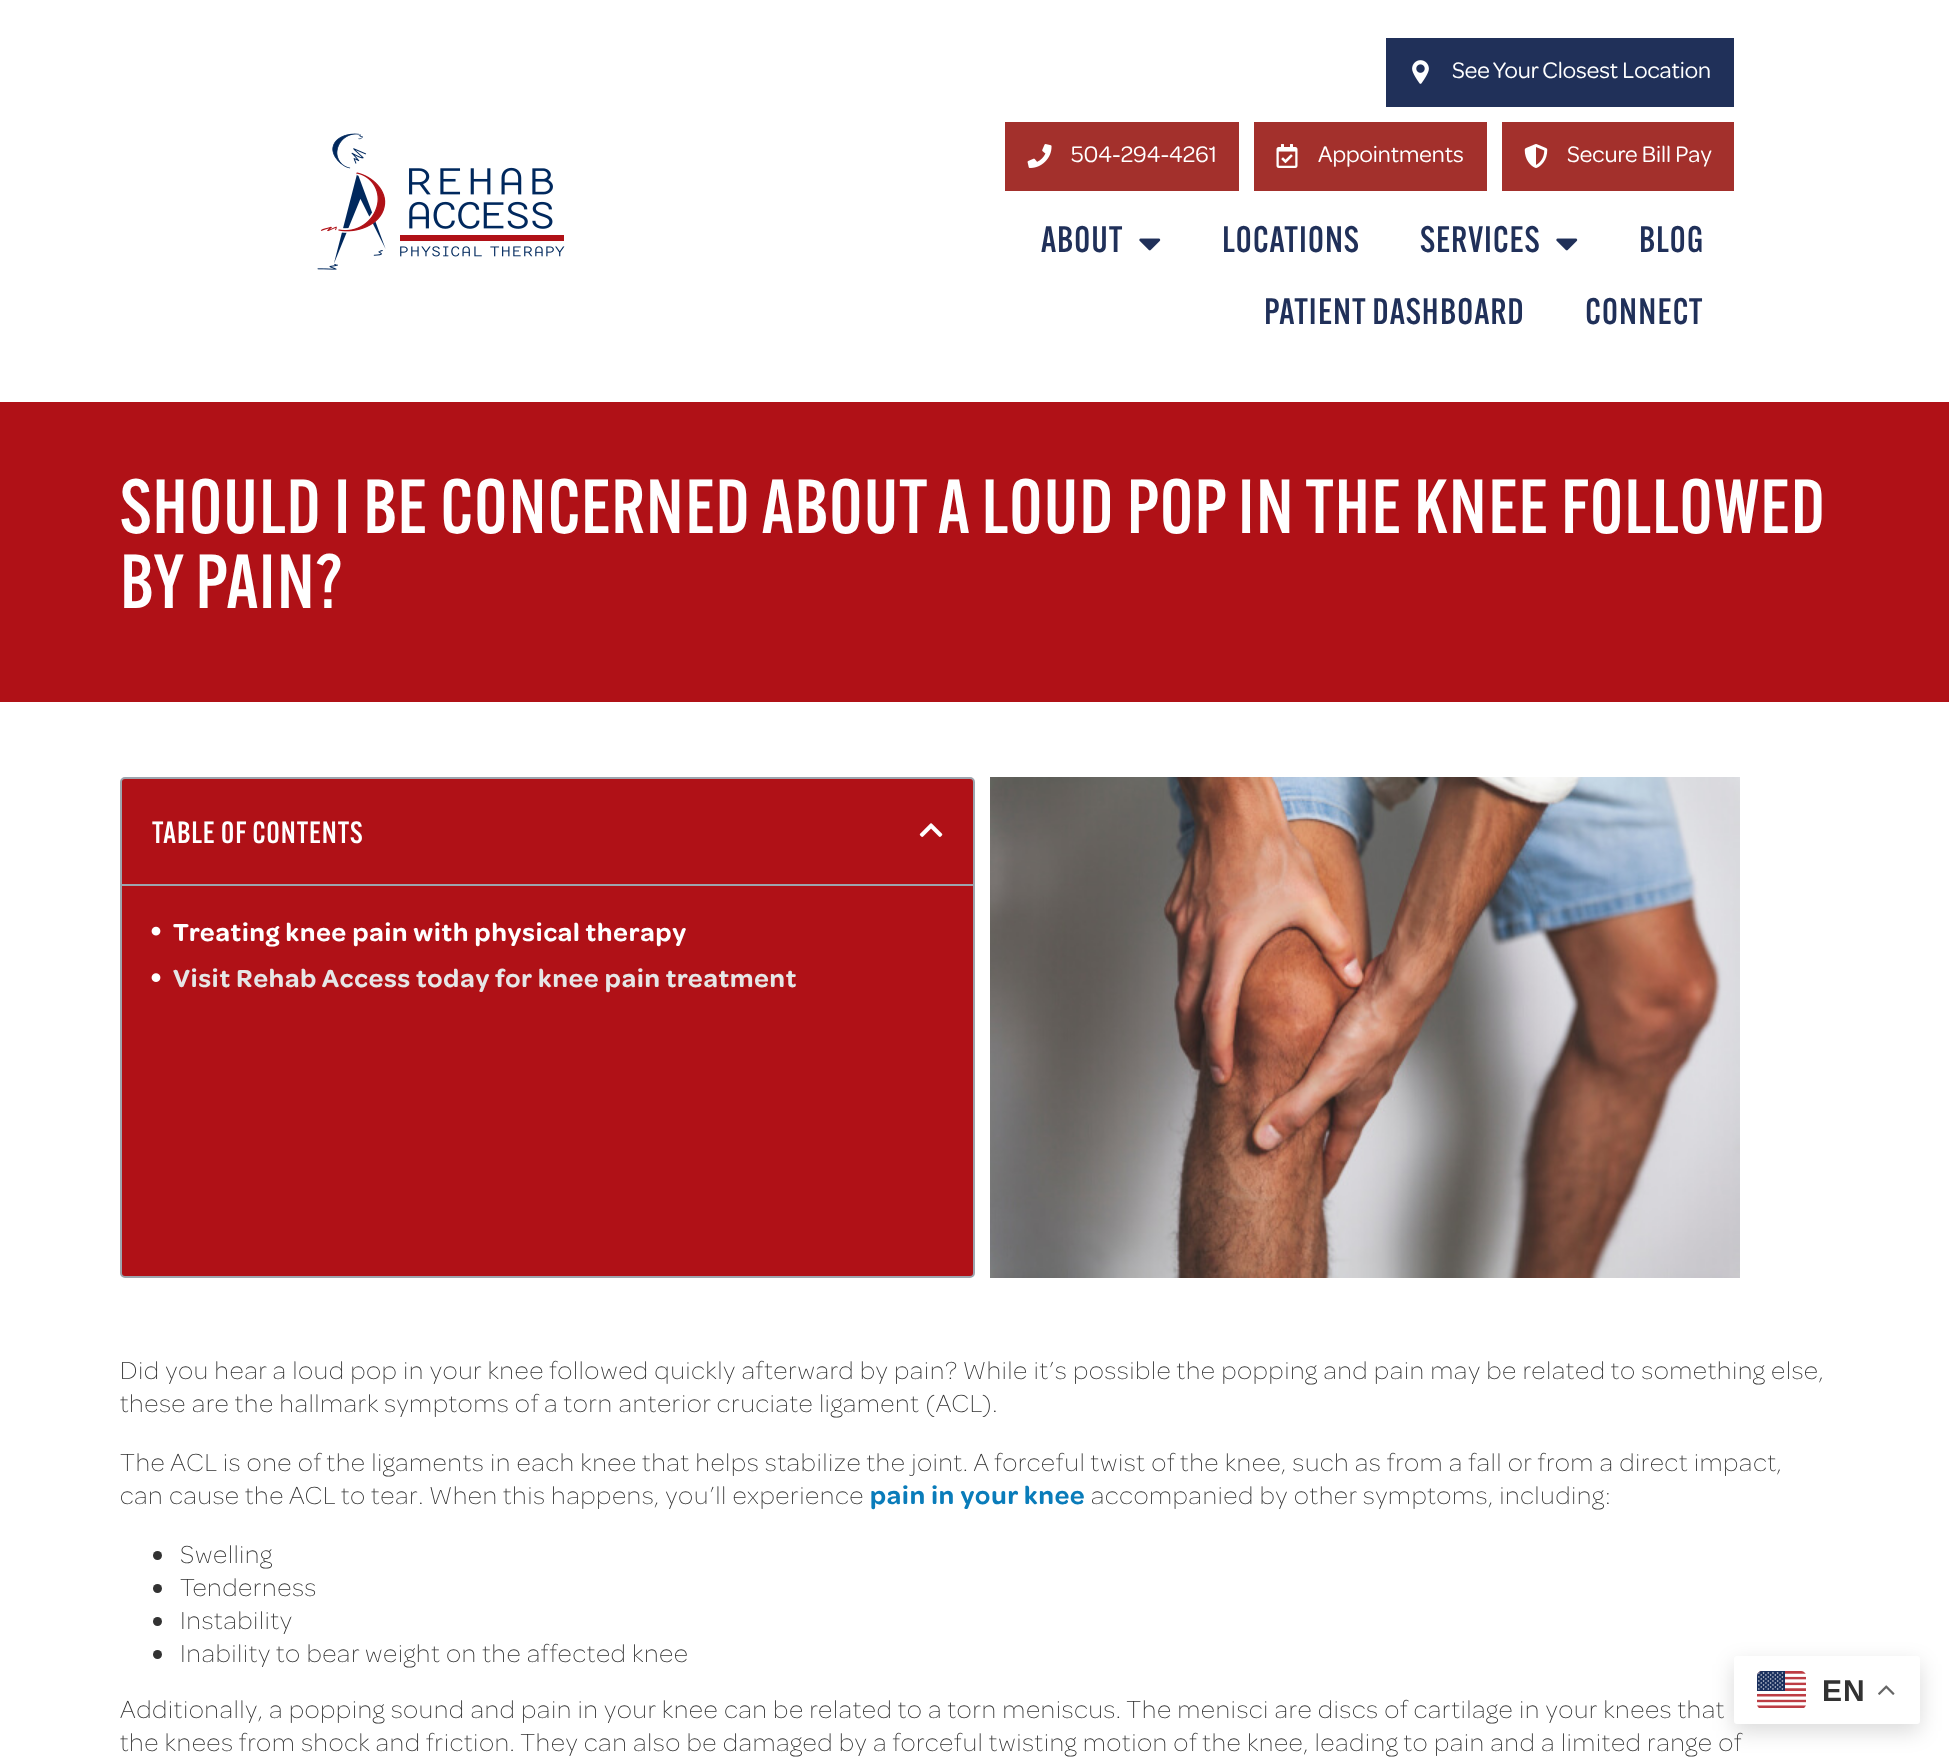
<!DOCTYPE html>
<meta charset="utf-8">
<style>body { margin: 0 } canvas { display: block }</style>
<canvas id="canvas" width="1949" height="1761"></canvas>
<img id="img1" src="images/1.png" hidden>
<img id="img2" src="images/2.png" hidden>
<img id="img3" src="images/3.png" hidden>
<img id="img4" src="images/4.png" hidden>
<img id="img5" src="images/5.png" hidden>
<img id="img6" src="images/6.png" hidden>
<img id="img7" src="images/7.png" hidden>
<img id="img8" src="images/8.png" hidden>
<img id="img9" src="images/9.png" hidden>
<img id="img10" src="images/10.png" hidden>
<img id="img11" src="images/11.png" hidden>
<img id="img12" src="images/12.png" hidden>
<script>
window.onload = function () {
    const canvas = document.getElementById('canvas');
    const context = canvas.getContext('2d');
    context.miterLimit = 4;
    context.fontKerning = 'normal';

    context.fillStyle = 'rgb(255, 255, 255)';
    context.fillRect(0, 0, 1949, 1761);
    context.drawImage(document.getElementById('img1'), 317, 133, 248, 137);
    context.fillStyle = 'rgb(32, 48, 89)';
    context.fillRect(1386, 38, 348, 69);
    context.drawImage(document.getElementById('img2'), 1412, 60, 17, 24);
    context.fillStyle = 'rgb(163, 48, 44)';
    context.fillRect(1005, 122, 234, 69);
    context.drawImage(document.getElementById('img3'), 1027, 144, 25, 24);
    context.fillRect(1254, 122, 233, 69);
    context.drawImage(document.getElementById('img4'), 1276, 144, 22, 24);
    context.fillRect(1502, 122, 232, 69);
    context.drawImage(document.getElementById('img5'), 1524, 144, 24, 24);
    context.drawImage(document.getElementById('img6'), 1139, 238, 22, 13);
    context.drawImage(document.getElementById('img6'), 1556, 238, 22, 13);
    context.fillStyle = 'rgb(176, 17, 23)';
    context.fillRect(0, 402, 1949, 300);
    context.beginPath();
    context.roundRect(121, 778, 853, 499, 4);
    context.fill();
    context.strokeStyle = 'rgb(157, 165, 174)';
    context.lineWidth = 2;
    context.stroke();
    context.fillStyle = 'rgb(157, 165, 174)';
    context.fillRect(122, 884, 852, 2);
    context.drawImage(document.getElementById('img7'), 919, 823, 24, 14);
    context.drawImage(document.getElementById('img8'), 151, 926, 10, 10);
    context.drawImage(document.getElementById('img9'), 151, 973, 10, 9);
    context.drawImage(document.getElementById('img10'), 990, 777, 750, 501);
    context.fillStyle = 'rgb(50, 50, 50)';
    context.beginPath();
    context.arc(157.5, 1555.5, 4.5, 0, 2 * Math.PI);
    context.fill();
    context.beginPath();
    context.arc(157.5, 1588.5, 4.5, 0, 2 * Math.PI);
    context.fill();
    context.beginPath();
    context.arc(157.5, 1621.5, 4.5, 0, 2 * Math.PI);
    context.fill();
    context.beginPath();
    context.arc(157.5, 1654.5, 4.5, 0, 2 * Math.PI);
    context.fill();
    context.fillStyle = 'rgba(0, 0, 0, 0.15)';
    context.filter = 'blur(11px)';
    context.beginPath();
    context.roundRect(1734, 1664, 186, 67, 3);
    context.fill();
    context.filter = 'none';
    context.fillStyle = 'rgb(255, 255, 255)';
    context.beginPath();
    context.roundRect(1734, 1656, 186, 68, 3);
    context.fill();
    context.drawImage(document.getElementById('img11'), 1757, 1671, 49, 37);
    context.drawImage(document.getElementById('img12'), 1878, 1685, 17, 10);
    context.font = '24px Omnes';
    context.fillText('See Your Closest Location', 1452, 78);
    context.fillText('504-294-4261', 1071, 162);
    context.fillText('Appointments', 1318, 162);
    context.fillText('Secure Bill Pay', 1567, 162);
    context.letterSpacing = '0.9px';
    context.font = '500 36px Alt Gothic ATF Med';
    context.fillStyle = 'rgb(32, 48, 89)';
    context.fillText('ABOUT', 1041, 252);
    context.fillText('LOCATIONS', 1222, 252);
    context.fillText('SERVICES', 1420, 252);
    context.fillText('BLOG', 1639, 252);
    context.fillText('PATIENT DASHBOARD', 1264, 324);
    context.fillText('CONNECT', 1585, 324);
    context.font = '500 75px Alt Gothic ATF Med';
    context.fillStyle = 'rgb(255, 255, 255)';
    context.fillText('SHOULD I BE CONCERNED ABOUT A LOUD POP IN THE KNEE FOLLOWED', 120, 533);
    context.fillText('BY PAIN?', 120, 608);
    context.font = '500 30px Alt Gothic ATF Med';
    context.fillText('TABLE OF CONTENTS', 152, 843);
    context.font = '600 26.4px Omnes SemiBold';
    context.fillText('Treating knee pain with physical therapy', 173, 941);
    context.fillStyle = 'rgb(230, 230, 230)';
    context.fillText('Visit Rehab Access today for knee pain treatment', 173, 987);
    context.font = '200 26.4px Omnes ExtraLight';
    context.fillStyle = 'rgb(50, 50, 50)';
    context.fillText('Did you hear a loud pop in your knee followed quickly afterward by pain? While it’s possible the popping and pain may be related to something else,', 120, 1379);
    context.fillText('these are the hallmark symptoms of a torn anterior cruciate ligament (ACL).', 120, 1412);
    context.fillText('The ACL is one of the ligaments in each knee that helps stabilize the joint. A forceful twist of the knee, such as from a fall or from a direct impact,', 120, 1471);
    context.fillText('can cause the ACL to tear. When this happens, you’ll experience', 120, 1504);
    context.font = '600 26.4px Omnes SemiBold';
    context.fillStyle = 'rgb(10, 124, 186)';
    context.fillText('pain in your knee', 870, 1504);
    context.font = '200 26.4px Omnes ExtraLight';
    context.fillStyle = 'rgb(50, 50, 50)';
    context.fillText('accompanied by other symptoms, including:', 1091, 1504);
    context.fillText('Swelling', 180, 1563);
    context.fillText('Tenderness', 180, 1596);
    context.fillText('Instability', 180, 1629);
    context.fillText('Inability to bear weight on the affected knee', 180, 1662);
    context.fillText('Additionally, a popping sound and pain in your knee can be related to a torn meniscus. The menisci are discs of cartilage in your knees that', 120, 1718);
    context.fillText('the knees from shock and friction. They can also be damaged by a forceful twisting motion of the knee, leading to pain and a limited range of', 120, 1751);
    context.font = 'bold 30px Liberation Sans';
    context.fillText('EN', 1822, 1701);
};
</script>
